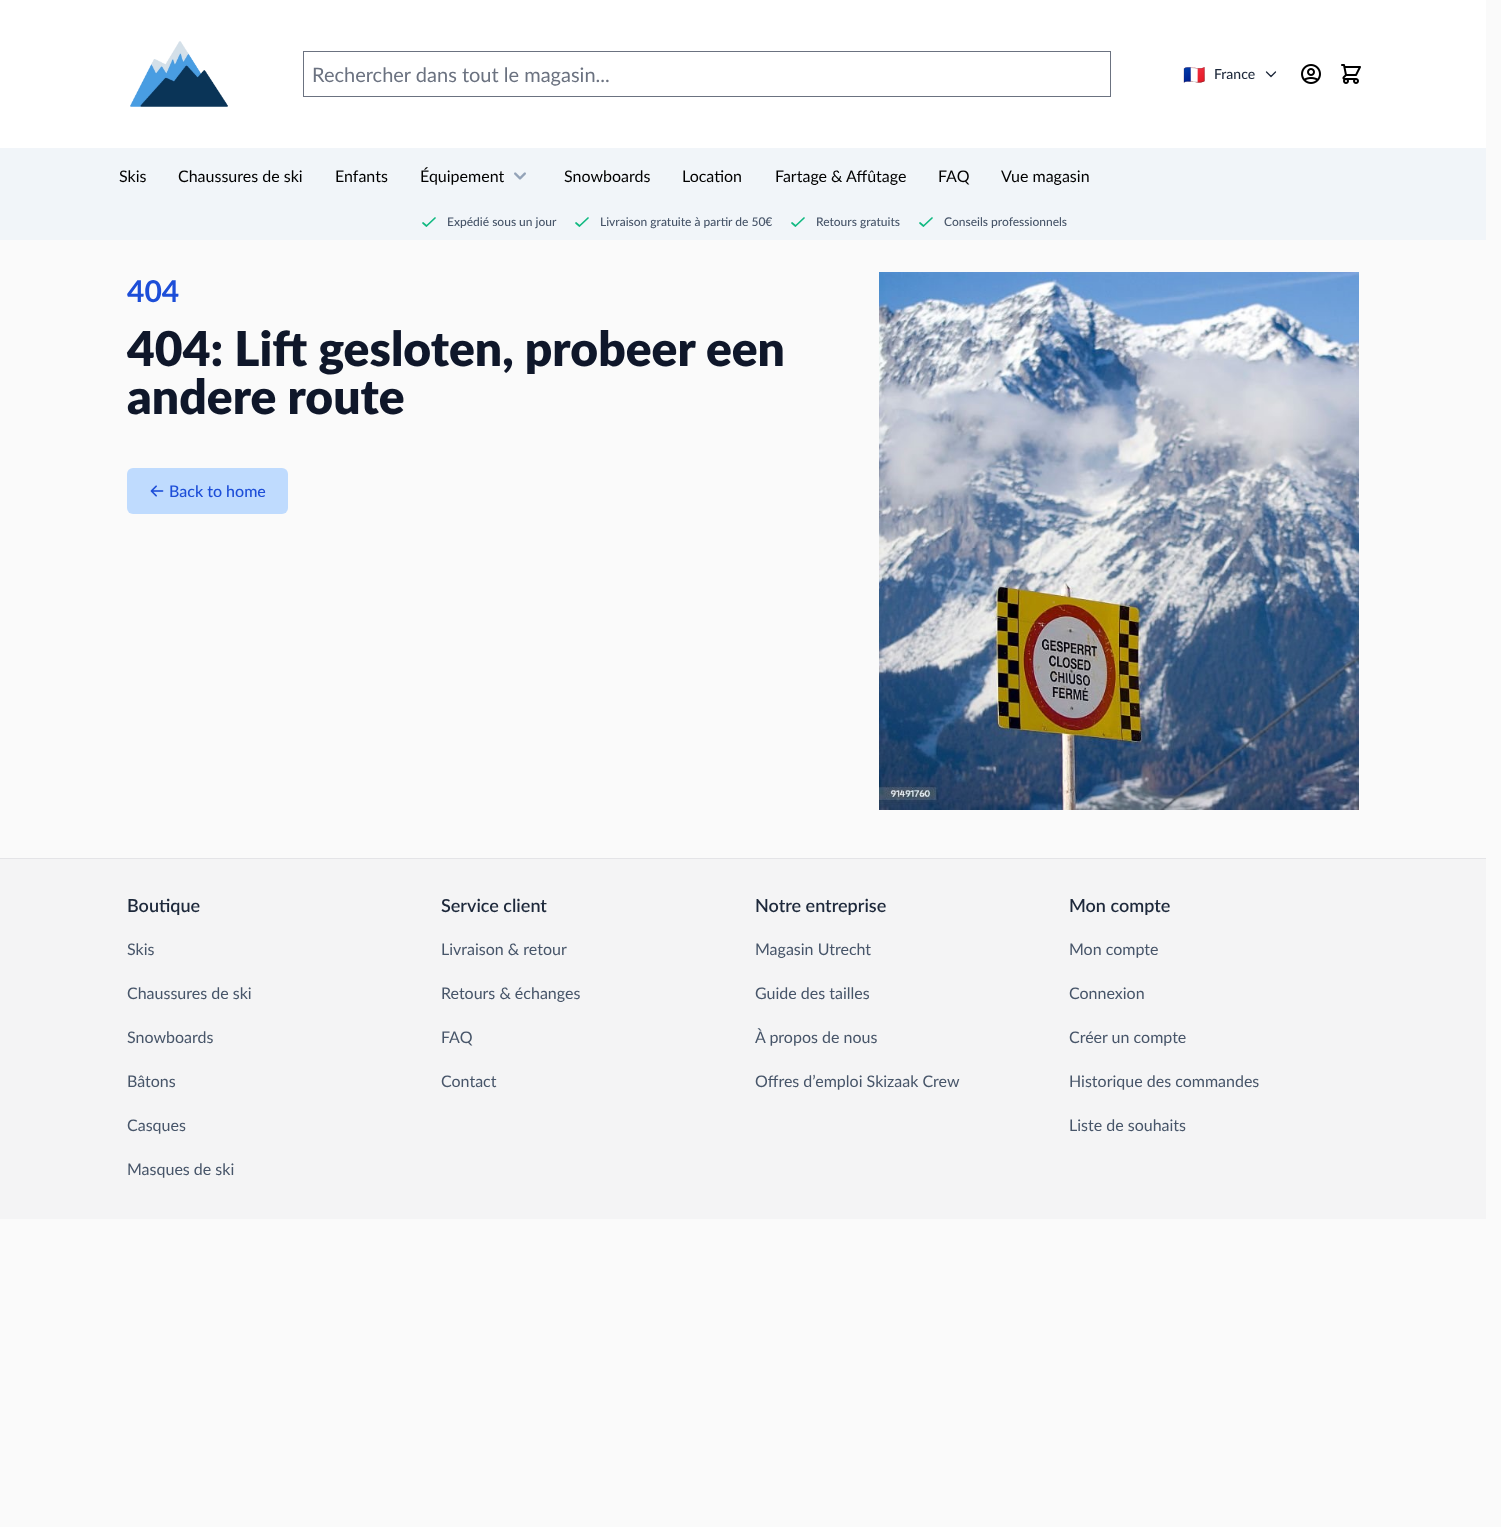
<!DOCTYPE html>
<meta charset="utf-8">
<style>body { margin: 0 } canvas { display: block }</style>
<canvas id="canvas" width="1501" height="1527"></canvas>
<img id="img1" src="images/1.png" hidden>
<img id="img2" src="images/2.png" hidden>
<img id="img3" src="images/3.png" hidden>
<img id="img4" src="images/4.png" hidden>
<img id="img5" src="images/5.png" hidden>
<img id="img6" src="images/6.png" hidden>
<script>
window.onload = function () {
    const canvas = document.getElementById('canvas');
    const context = canvas.getContext('2d');
    context.miterLimit = 4;
    context.fontKerning = 'normal';

    context.fillStyle = 'rgb(250, 250, 250)';
    context.fillRect(0, 0, 1501, 1527);
    context.fillStyle = 'rgb(255, 255, 255)';
    context.fillRect(0, 0, 1486, 148);
    context.drawImage(document.getElementById('img1'), 130, 41, 98, 66);
    context.strokeStyle = 'rgb(107, 114, 128)';
    context.strokeRect(303.5, 51.5, 807, 45);
    context.beginPath();
    context.moveTo(1275.5, 72);
    context.lineTo(1271, 76.5);
    context.lineTo(1266.5, 72);
    context.strokeStyle = 'rgb(30, 41, 59)';
    context.lineWidth = 1.3;
    context.lineCap = 'round';
    context.lineJoin = 'round';
    context.stroke();
    context.drawImage(document.getElementById('img2'), 1301, 64, 20, 20);
    context.drawImage(document.getElementById('img3'), 1341, 64, 20, 20);
    context.fillStyle = 'rgb(241, 245, 249)';
    context.fillRect(0, 148, 1486, 92);
    context.drawImage(document.getElementById('img4'), 514, 172, 12, 8);
    context.beginPath();
    context.moveTo(423, 223);
    context.lineTo(426.5, 226);
    context.lineTo(435, 218);
    context.strokeStyle = 'rgb(16, 185, 129)';
    context.lineWidth = 1.7;
    context.stroke();
    context.beginPath();
    context.moveTo(576, 223);
    context.lineTo(579.5, 226);
    context.lineTo(588, 218);
    context.stroke();
    context.beginPath();
    context.moveTo(792, 223);
    context.lineTo(795.5, 226);
    context.lineTo(804, 218);
    context.stroke();
    context.beginPath();
    context.moveTo(920, 223);
    context.lineTo(923.5, 226);
    context.lineTo(932, 218);
    context.stroke();
    context.fillStyle = 'rgb(191, 219, 254)';
    context.beginPath();
    context.roundRect(127, 468, 161, 46, 6);
    context.fill();
    context.drawImage(document.getElementById('img5'), 150, 485, 14, 12);
    context.drawImage(document.getElementById('img6'), 879, 272, 480, 538);
    context.fillStyle = 'rgb(244, 244, 245)';
    context.fillRect(0, 859, 1486, 360);
    context.fillStyle = 'rgb(228, 228, 231)';
    context.fillRect(0, 858, 1486, 1);
    context.font = '20px Lato';
    context.fillStyle = 'rgb(107, 114, 128)';
    context.fillText('Rechercher dans tout le magasin...', 312, 82);
    context.font = '18px Noto Color Emoji';
    context.fillStyle = 'rgb(30, 41, 59)';
    context.fillText('🇫🇷', 1183, 81);
    context.font = '500 14px Lato';
    context.fillText('France', 1214, 79);
    context.font = '16px Lato';
    context.fillStyle = 'rgb(0, 0, 0)';
    context.fillText('Skis', 119, 182);
    context.fillText('Chaussures de ski', 178, 182);
    context.fillText('Enfants', 335, 182);
    context.fillText('Équipement', 420, 182);
    context.fillText('Snowboards', 564, 182);
    context.fillText('Location', 682, 182);
    context.fillText('Fartage & Affûtage', 775, 182);
    context.fillText('FAQ', 938, 182);
    context.fillText('Vue magasin', 1001, 182);
    context.font = '500 12px Lato';
    context.fillStyle = 'rgb(71, 85, 105)';
    context.fillText('Expédié sous un jour', 447, 226);
    context.fillText('Livraison gratuite à partir de 50€', 600, 226);
    context.fillText('Retours gratuits', 816, 226);
    context.fillText('Conseils professionnels', 944, 226);
    context.font = 'bold 30px Lato';
    context.fillStyle = 'rgb(29, 78, 216)';
    context.fillText('404', 127, 302);
    context.font = '800 48px Lato';
    context.fillStyle = 'rgb(15, 23, 42)';
    context.fillText('404: Lift gesloten, probeer een', 127, 366);
    context.fillText('andere route', 127, 414);
    context.font = '500 16px Lato';
    context.fillStyle = 'rgb(29, 78, 216)';
    context.fillText('Back to home', 169, 497);
    context.font = '600 18px Lato';
    context.fillStyle = 'rgb(30, 41, 59)';
    context.fillText('Boutique', 127, 912);
    context.font = '16px Lato';
    context.fillStyle = 'rgb(71, 85, 105)';
    context.fillText('Skis', 127, 955);
    context.fillText('Chaussures de ski', 127, 999);
    context.fillText('Snowboards', 127, 1043);
    context.fillText('Bâtons', 127, 1087);
    context.fillText('Casques', 127, 1131);
    context.fillText('Masques de ski', 127, 1175);
    context.font = '600 18px Lato';
    context.fillStyle = 'rgb(30, 41, 59)';
    context.fillText('Service client', 441, 912);
    context.font = '16px Lato';
    context.fillStyle = 'rgb(71, 85, 105)';
    context.fillText('Livraison & retour', 441, 955);
    context.fillText('Retours & échanges', 441, 999);
    context.fillText('FAQ', 441, 1043);
    context.fillText('Contact', 441, 1087);
    context.font = '600 18px Lato';
    context.fillStyle = 'rgb(30, 41, 59)';
    context.fillText('Notre entreprise', 755, 912);
    context.font = '16px Lato';
    context.fillStyle = 'rgb(71, 85, 105)';
    context.fillText('Magasin Utrecht', 755, 955);
    context.fillText('Guide des tailles', 755, 999);
    context.fillText('À propos de nous', 755, 1043);
    context.fillText('Offres d’emploi Skizaak Crew', 755, 1087);
    context.font = '600 18px Lato';
    context.fillStyle = 'rgb(30, 41, 59)';
    context.fillText('Mon compte', 1069, 912);
    context.font = '16px Lato';
    context.fillStyle = 'rgb(71, 85, 105)';
    context.fillText('Mon compte', 1069, 955);
    context.fillText('Connexion', 1069, 999);
    context.fillText('Créer un compte', 1069, 1043);
    context.fillText('Historique des commandes', 1069, 1087);
    context.fillText('Liste de souhaits', 1069, 1131);
};
</script>
